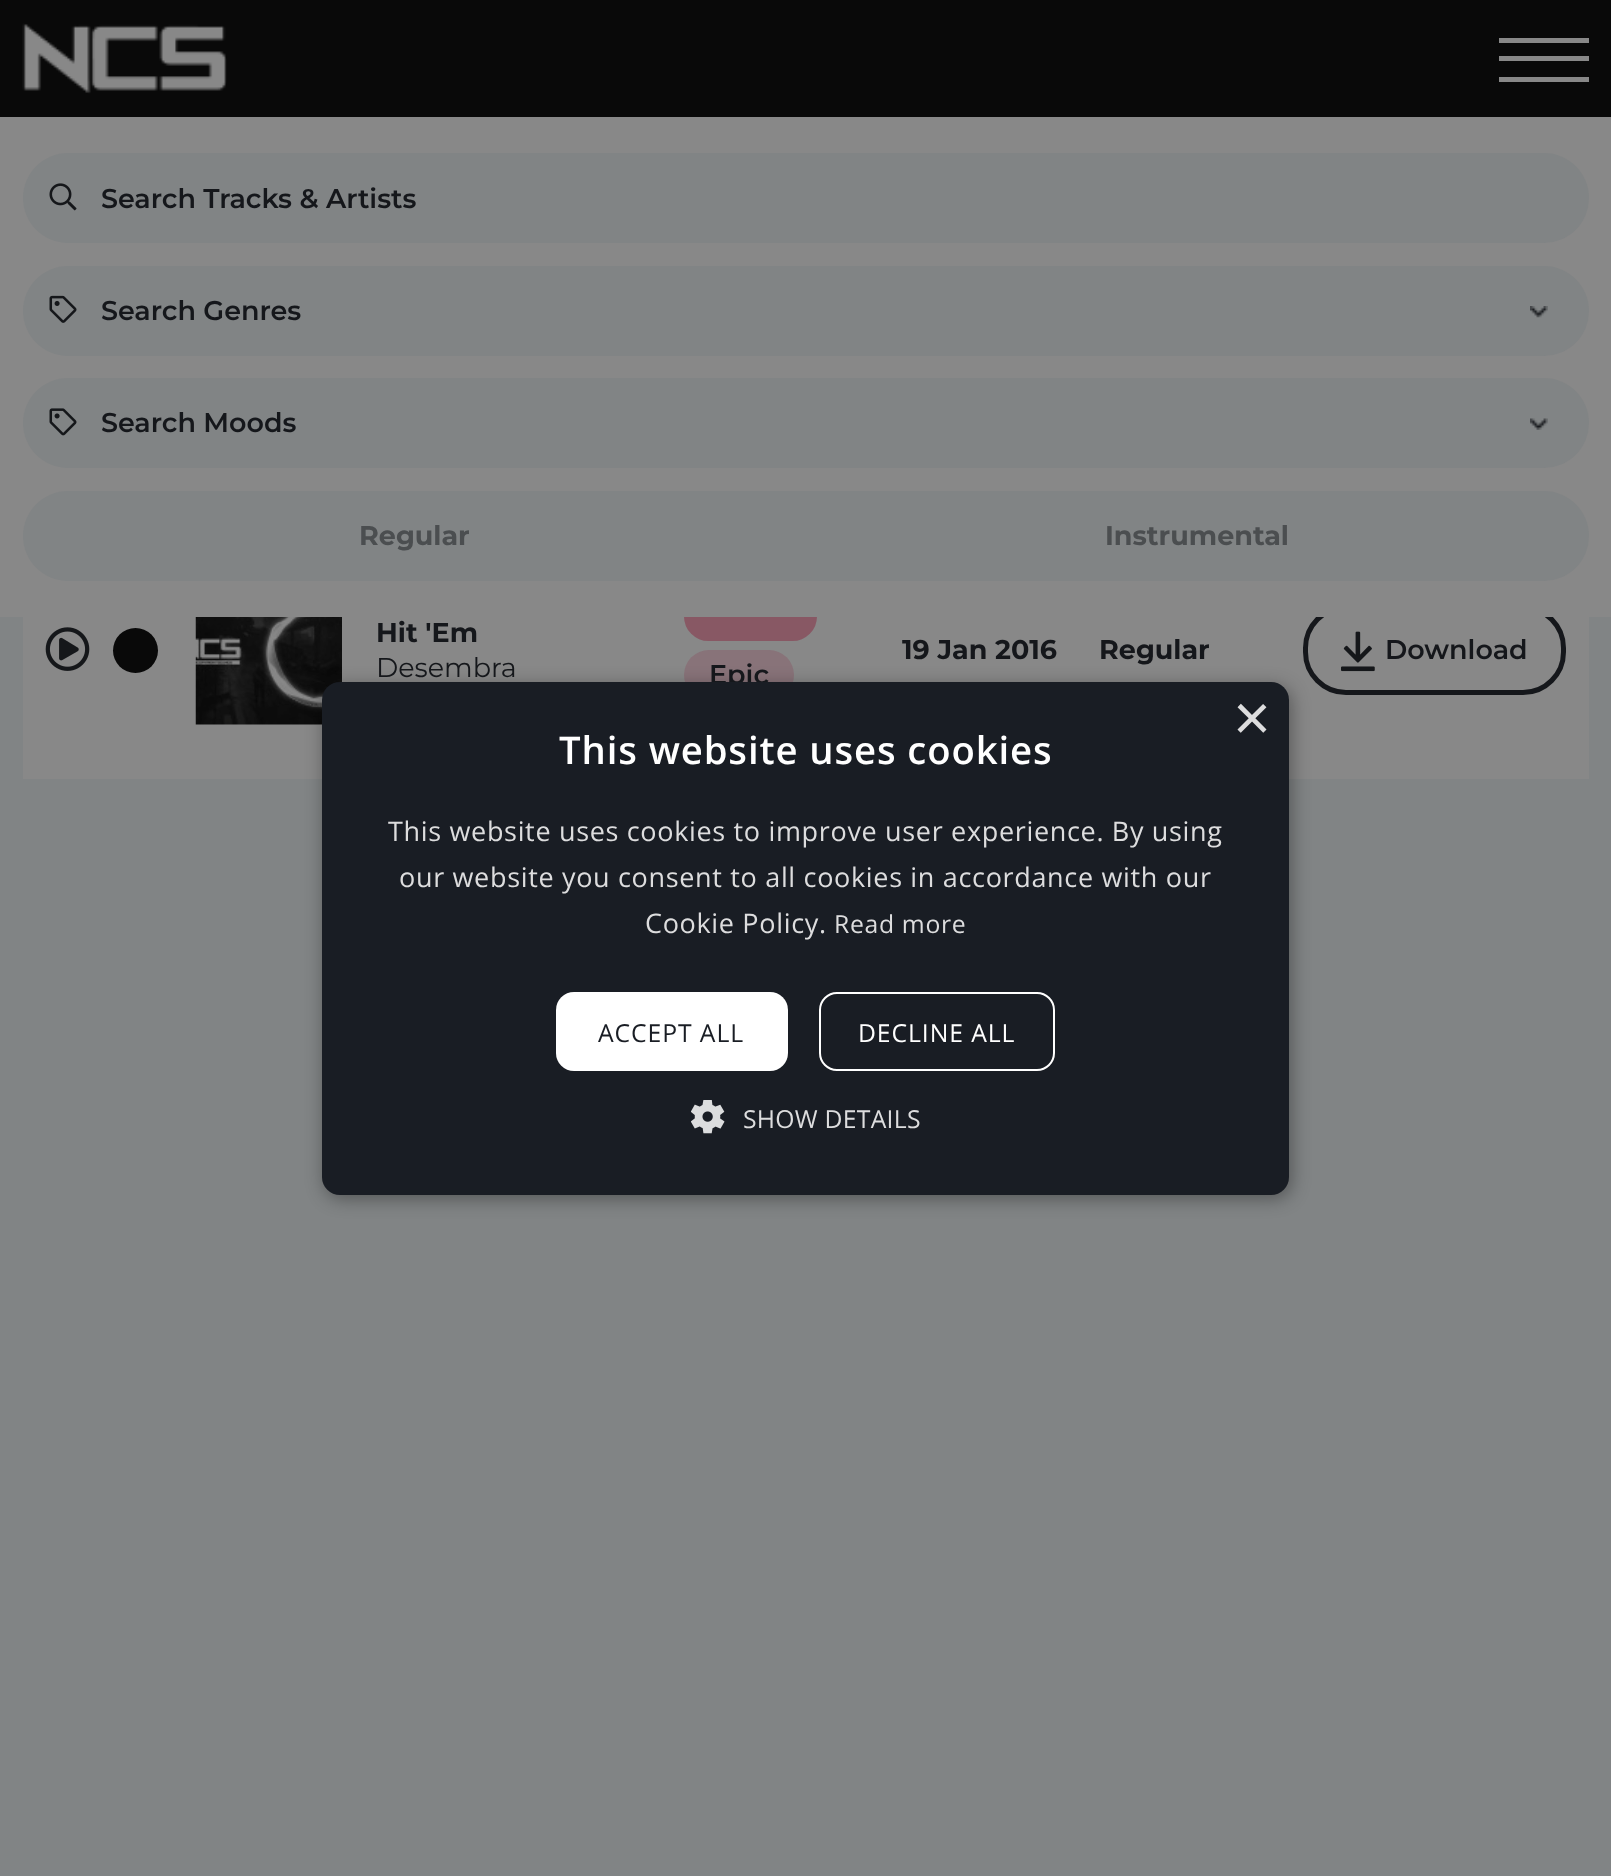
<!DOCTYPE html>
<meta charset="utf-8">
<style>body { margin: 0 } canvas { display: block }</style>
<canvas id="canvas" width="1611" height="1876"></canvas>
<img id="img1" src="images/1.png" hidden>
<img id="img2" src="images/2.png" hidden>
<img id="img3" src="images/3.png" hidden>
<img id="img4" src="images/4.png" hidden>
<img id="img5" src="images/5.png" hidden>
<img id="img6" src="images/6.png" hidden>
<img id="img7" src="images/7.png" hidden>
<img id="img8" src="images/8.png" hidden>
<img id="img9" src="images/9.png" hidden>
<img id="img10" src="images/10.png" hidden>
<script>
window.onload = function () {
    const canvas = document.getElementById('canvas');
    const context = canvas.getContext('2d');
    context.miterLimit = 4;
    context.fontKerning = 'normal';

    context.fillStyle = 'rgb(129, 132, 133)';
    context.fillRect(0, 0, 1611, 1876);
    context.fillStyle = 'rgb(9, 9, 9)';
    context.fillRect(0, 0, 1611, 117);
    context.drawImage(document.getElementById('img1'), 22, 23, 205, 71);
    context.fillStyle = 'rgb(136, 136, 136)';
    context.fillRect(1499, 38, 90, 5);
    context.fillRect(1499, 56, 90, 5);
    context.fillRect(1499, 77, 90, 5);
    context.fillRect(1098, 617, 491, 162);
    context.beginPath();
    context.roundRect(1305.5, 607.5, 258, 85, 40.5);
    context.strokeStyle = 'rgb(21, 23, 27)';
    context.lineWidth = 5;
    context.stroke();
    context.fillRect(376, 617, 722, 65);
    context.fillStyle = 'rgb(136, 88, 100)';
    context.beginPath();
    context.roundRect(684, 592, 133, 49, 24.5);
    context.fill();
    context.fillStyle = 'rgb(136, 136, 136)';
    context.fillRect(0, 117, 1611, 500);
    context.fillStyle = 'rgb(129, 132, 133)';
    context.beginPath();
    context.roundRect(23, 153, 1566, 90, 45);
    context.fill();
    context.drawImage(document.getElementById('img2'), 49, 183, 28, 28);
    context.beginPath();
    context.roundRect(23, 266, 1566, 90, 45);
    context.fill();
    context.drawImage(document.getElementById('img3'), 49, 295, 28, 28);
    context.drawImage(document.getElementById('img4'), 1530, 306, 18, 12);
    context.beginPath();
    context.roundRect(23, 378, 1566, 90, 45);
    context.fill();
    context.drawImage(document.getElementById('img5'), 49, 408, 28, 28);
    context.drawImage(document.getElementById('img6'), 1530, 418, 18, 12);
    context.beginPath();
    context.roundRect(23, 491, 783, 90, [45, 0, 0, 45]);
    context.fill();
    context.beginPath();
    context.roundRect(806, 491, 783, 90, [0, 45, 45, 0]);
    context.fill();
    context.fillStyle = 'rgb(136, 136, 136)';
    context.fillRect(23, 617, 353, 162);
    context.drawImage(document.getElementById('img7'), 45, 627, 45, 44);
    context.fillStyle = 'rgb(9, 9, 9)';
    context.beginPath();
    context.arc(135.5, 650.5, 22.5, 0, 2 * Math.PI);
    context.fill();
    context.drawImage(document.getElementById('img8'), 195, 617, 147, 108);
    context.drawImage(document.getElementById('img9'), 1341, 631, 34, 41);
    context.fillStyle = 'rgb(136, 115, 121)';
    context.beginPath();
    context.roundRect(684, 650, 110, 50, 25);
    context.fill();
    context.fillStyle = 'rgba(0, 0, 0, 0.35)';
    context.filter = 'blur(9px)';
    context.beginPath();
    context.roundRect(324, 686, 968, 513, 18);
    context.fill();
    context.filter = 'none';
    context.font = '600 27px Montserrat';
    context.fillStyle = 'rgb(21, 23, 27)';
    context.fillText('Search Tracks & Artists', 101, 208);
    context.fillText('Search Genres', 101, 320);
    context.fillText('Search Moods', 101, 432);
    context.font = 'bold 27px Montserrat';
    context.fillStyle = 'rgb(75, 78, 80)';
    context.fillText('Regular', 359, 545);
    context.fillText('Instrumental', 1105, 545);
    context.fillStyle = 'rgb(21, 23, 27)';
    context.fillText('Hit \'Em', 376, 642);
    context.font = '27px Montserrat';
    context.fillText('Desembra', 376, 677);
    context.font = 'bold 27px Montserrat';
    context.fillText('19 Jan 2016', 902, 659);
    context.fillText('Regular', 1099, 659);
    context.font = '600 27px Montserrat';
    context.fillText('Download', 1385, 659);
    context.fillText('Epic', 709, 684);
    context.fillStyle = 'rgb(25, 29, 36)';
    context.beginPath();
    context.roundRect(322, 682, 967, 513, 18);
    context.fill();
    context.font = '65px Liberation Sans';
    context.fillStyle = 'rgb(221, 221, 222)';
    context.fillText('×', 1233, 740);
    context.letterSpacing = '0.9px';
    context.font = '600 38.25px Open Sans';
    context.fillStyle = 'rgb(255, 255, 255)';
    context.fillText('This website uses cookies', 559, 764);
    context.letterSpacing = '0.67px';
    context.font = '27px Open Sans';
    context.fillStyle = 'rgb(221, 221, 222)';
    context.fillText('This website uses cookies to improve user experience. By using', 388, 841);
    context.fillText('our website you consent to all cookies in accordance with our', 399, 887);
    context.fillText('Cookie Policy.', 645, 933);
    context.font = '24.75px Open Sans';
    context.fillText('Read more', 834, 933);
    context.fillStyle = 'rgb(255, 255, 255)';
    context.beginPath();
    context.roundRect(556, 992, 232, 79, 18);
    context.fill();
    context.letterSpacing = '0.9px';
    context.fillStyle = 'rgb(25, 29, 36)';
    context.fillText('ACCEPT ALL', 598, 1042);
    context.beginPath();
    context.roundRect(820, 993, 234, 77, 17);
    context.strokeStyle = 'rgb(255, 255, 255)';
    context.lineWidth = 2;
    context.stroke();
    context.fillStyle = 'rgb(255, 255, 255)';
    context.fillText('DECLINE ALL', 858, 1042);
    context.drawImage(document.getElementById('img10'), 691, 1100, 34, 34);
    context.letterSpacing = '0.25px';
    context.fillStyle = 'rgb(221, 221, 222)';
    context.fillText('SHOW DETAILS', 743, 1128);
};
</script>
